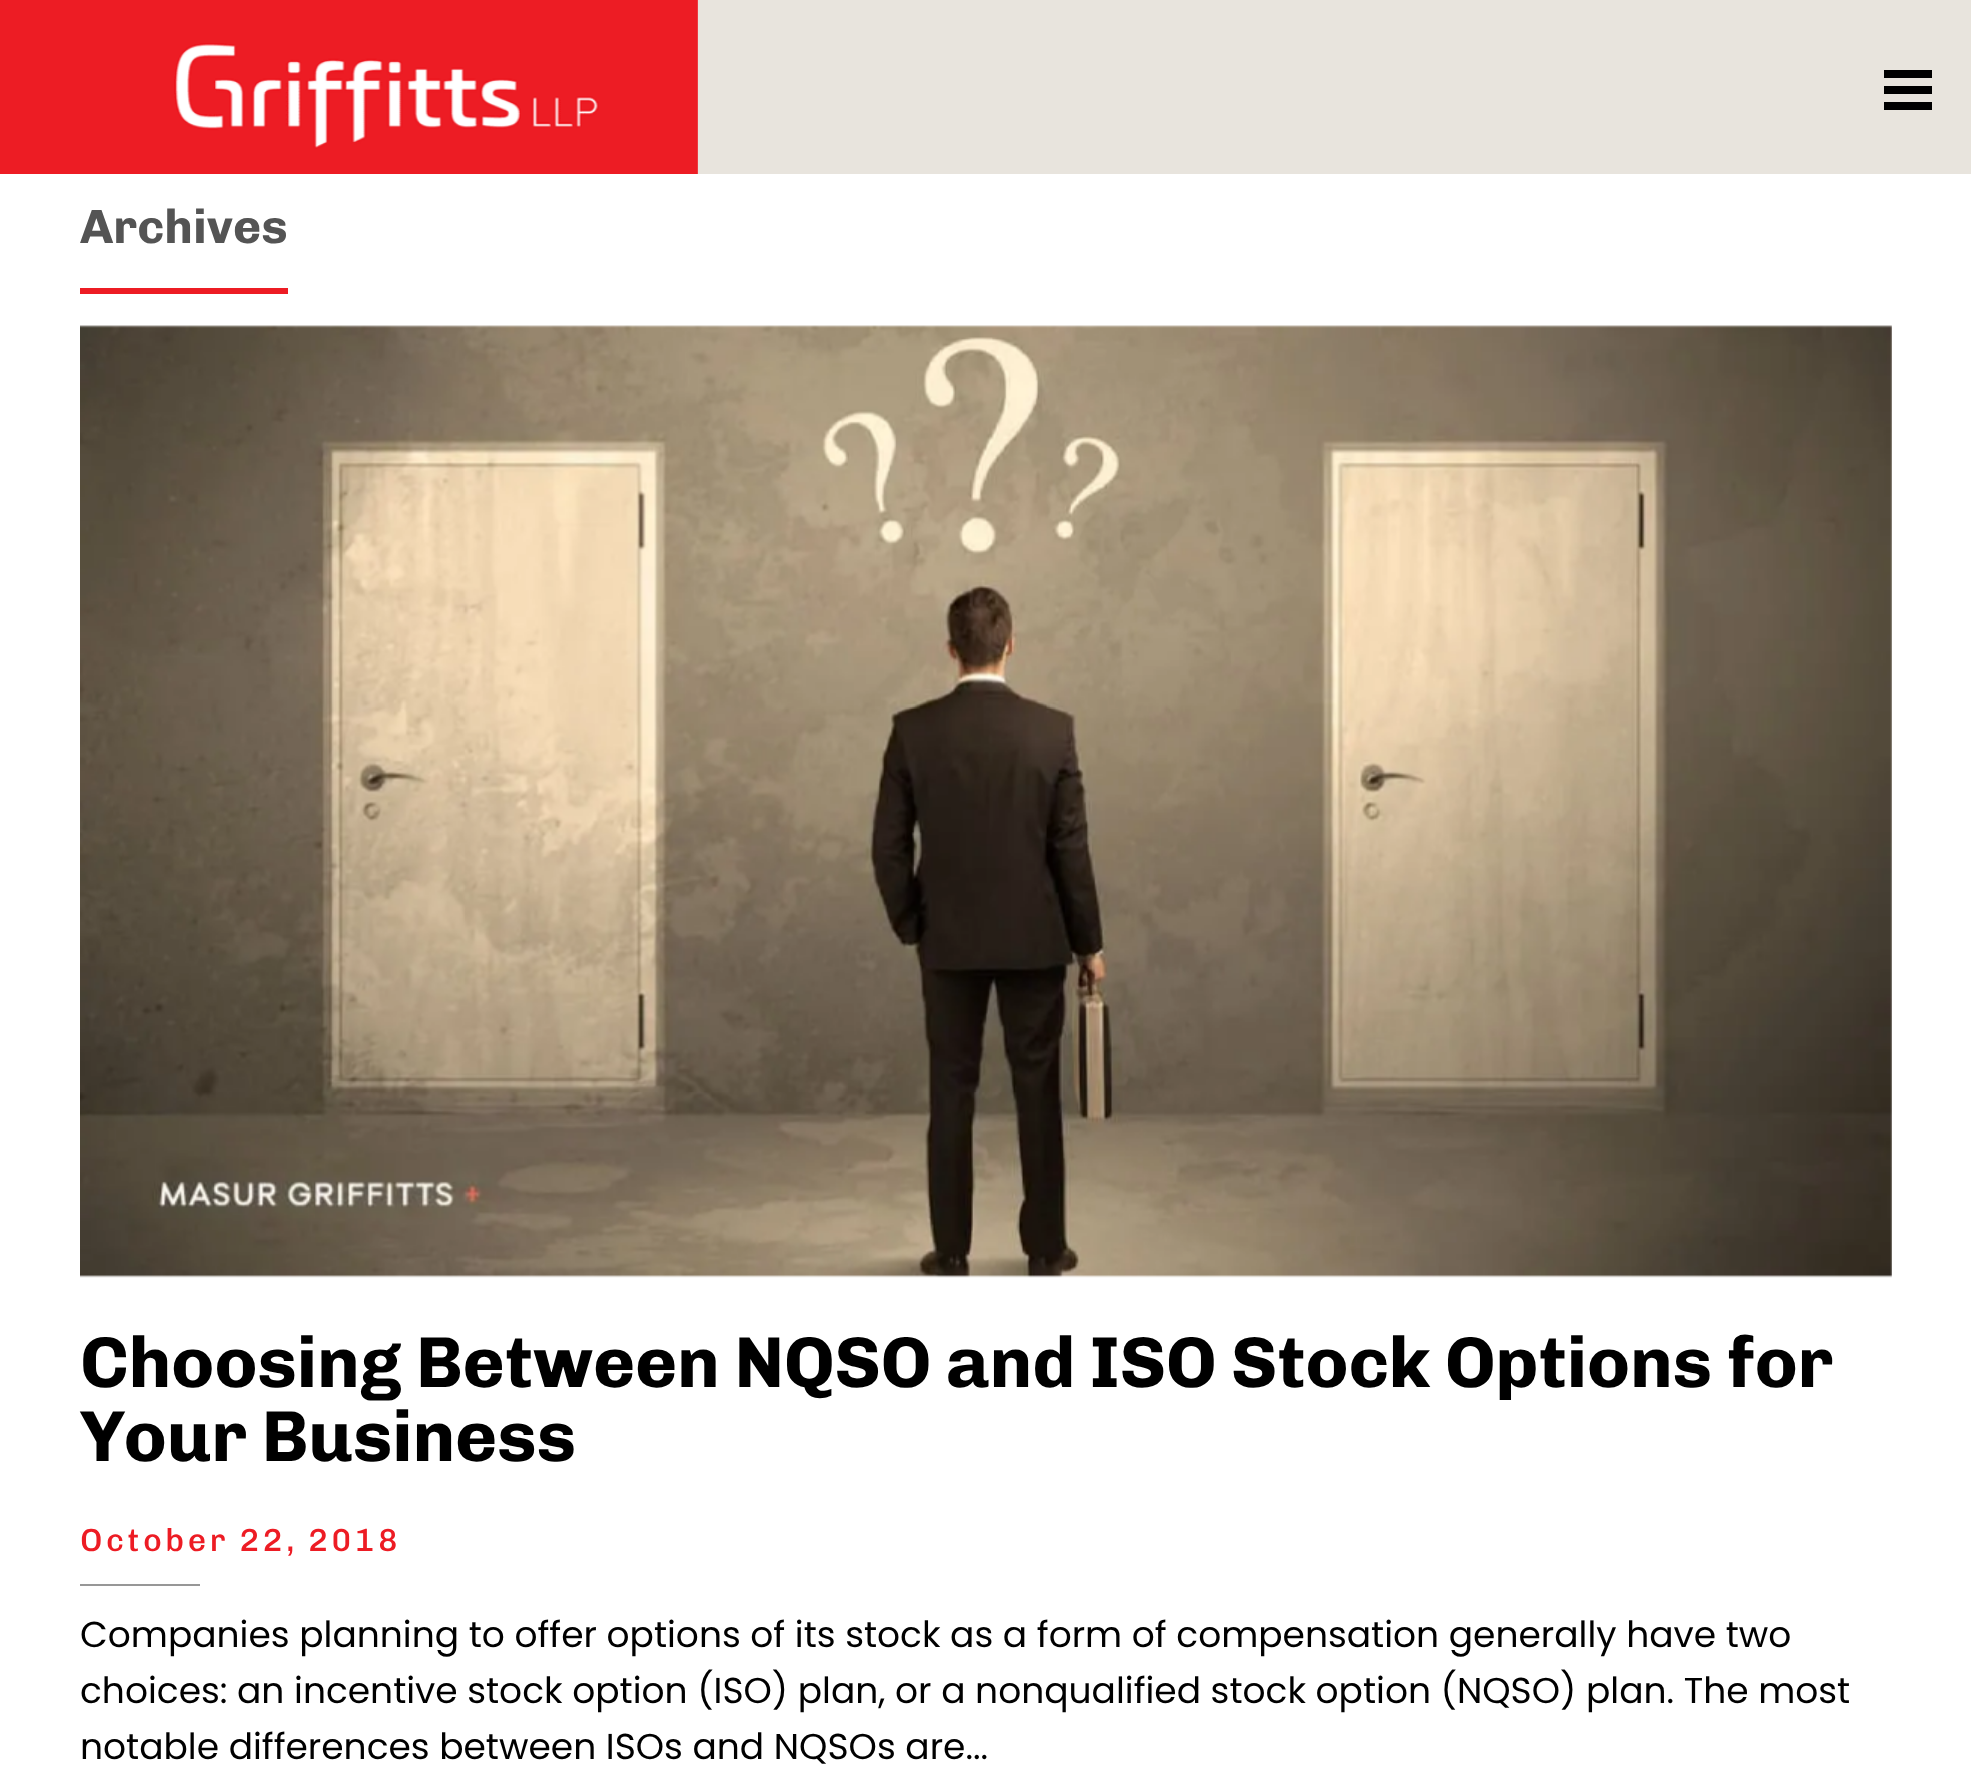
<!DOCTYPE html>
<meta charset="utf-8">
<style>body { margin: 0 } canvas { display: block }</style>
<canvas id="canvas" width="1971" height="1766"></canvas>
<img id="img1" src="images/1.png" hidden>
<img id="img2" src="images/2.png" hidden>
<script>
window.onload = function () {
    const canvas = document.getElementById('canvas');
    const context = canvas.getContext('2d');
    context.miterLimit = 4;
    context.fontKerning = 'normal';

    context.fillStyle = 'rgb(255, 255, 255)';
    context.fillRect(0, 0, 1971, 1766);
    context.fillStyle = 'rgb(232, 228, 221)';
    context.fillRect(697, 0, 1274, 174);
    context.drawImage(document.getElementById('img1'), 0, 0, 698, 174);
    context.fillStyle = 'rgb(0, 0, 0)';
    context.fillRect(1884, 70, 48, 8);
    context.fillRect(1884, 86, 48, 8);
    context.fillRect(1884, 102, 48, 8);
    context.fillStyle = 'rgb(237, 28, 36)';
    context.fillRect(80, 288, 208, 6);
    context.drawImage(document.getElementById('img2'), 80, 325, 1812, 953);
    context.fillStyle = 'rgb(151, 151, 151)';
    context.fillRect(80, 1584, 120, 2);
    context.font = 'bold 48px Chivo';
    context.fillStyle = 'rgb(84, 84, 84)';
    context.fillText('Archives', 80, 243);
    context.letterSpacing = '-0.4px';
    context.font = 'bold 72px Chivo';
    context.fillStyle = 'rgb(0, 0, 0)';
    context.fillText('Choosing Between NQSO and ISO Stock Options for', 80, 1387);
    context.fillText('Your Business', 80, 1461);
    context.letterSpacing = '3.5px';
    context.font = '500 32px Chivo';
    context.fillStyle = 'rgb(237, 28, 36)';
    context.fillText('October 22, 2018', 80, 1551);
    context.letterSpacing = '0px';
    context.font = '36px Poppins';
    context.fillStyle = 'rgb(0, 0, 0)';
    context.fillText('Companies planning to offer options of its stock as a form of compensation generally have two', 80, 1647);
    context.fillText('choices: an incentive stock option (ISO) plan, or a nonqualified stock option (NQSO) plan. The most', 80, 1703);
    context.fillText('notable differences between ISOs and NQSOs are...', 80, 1759);
};
</script>
